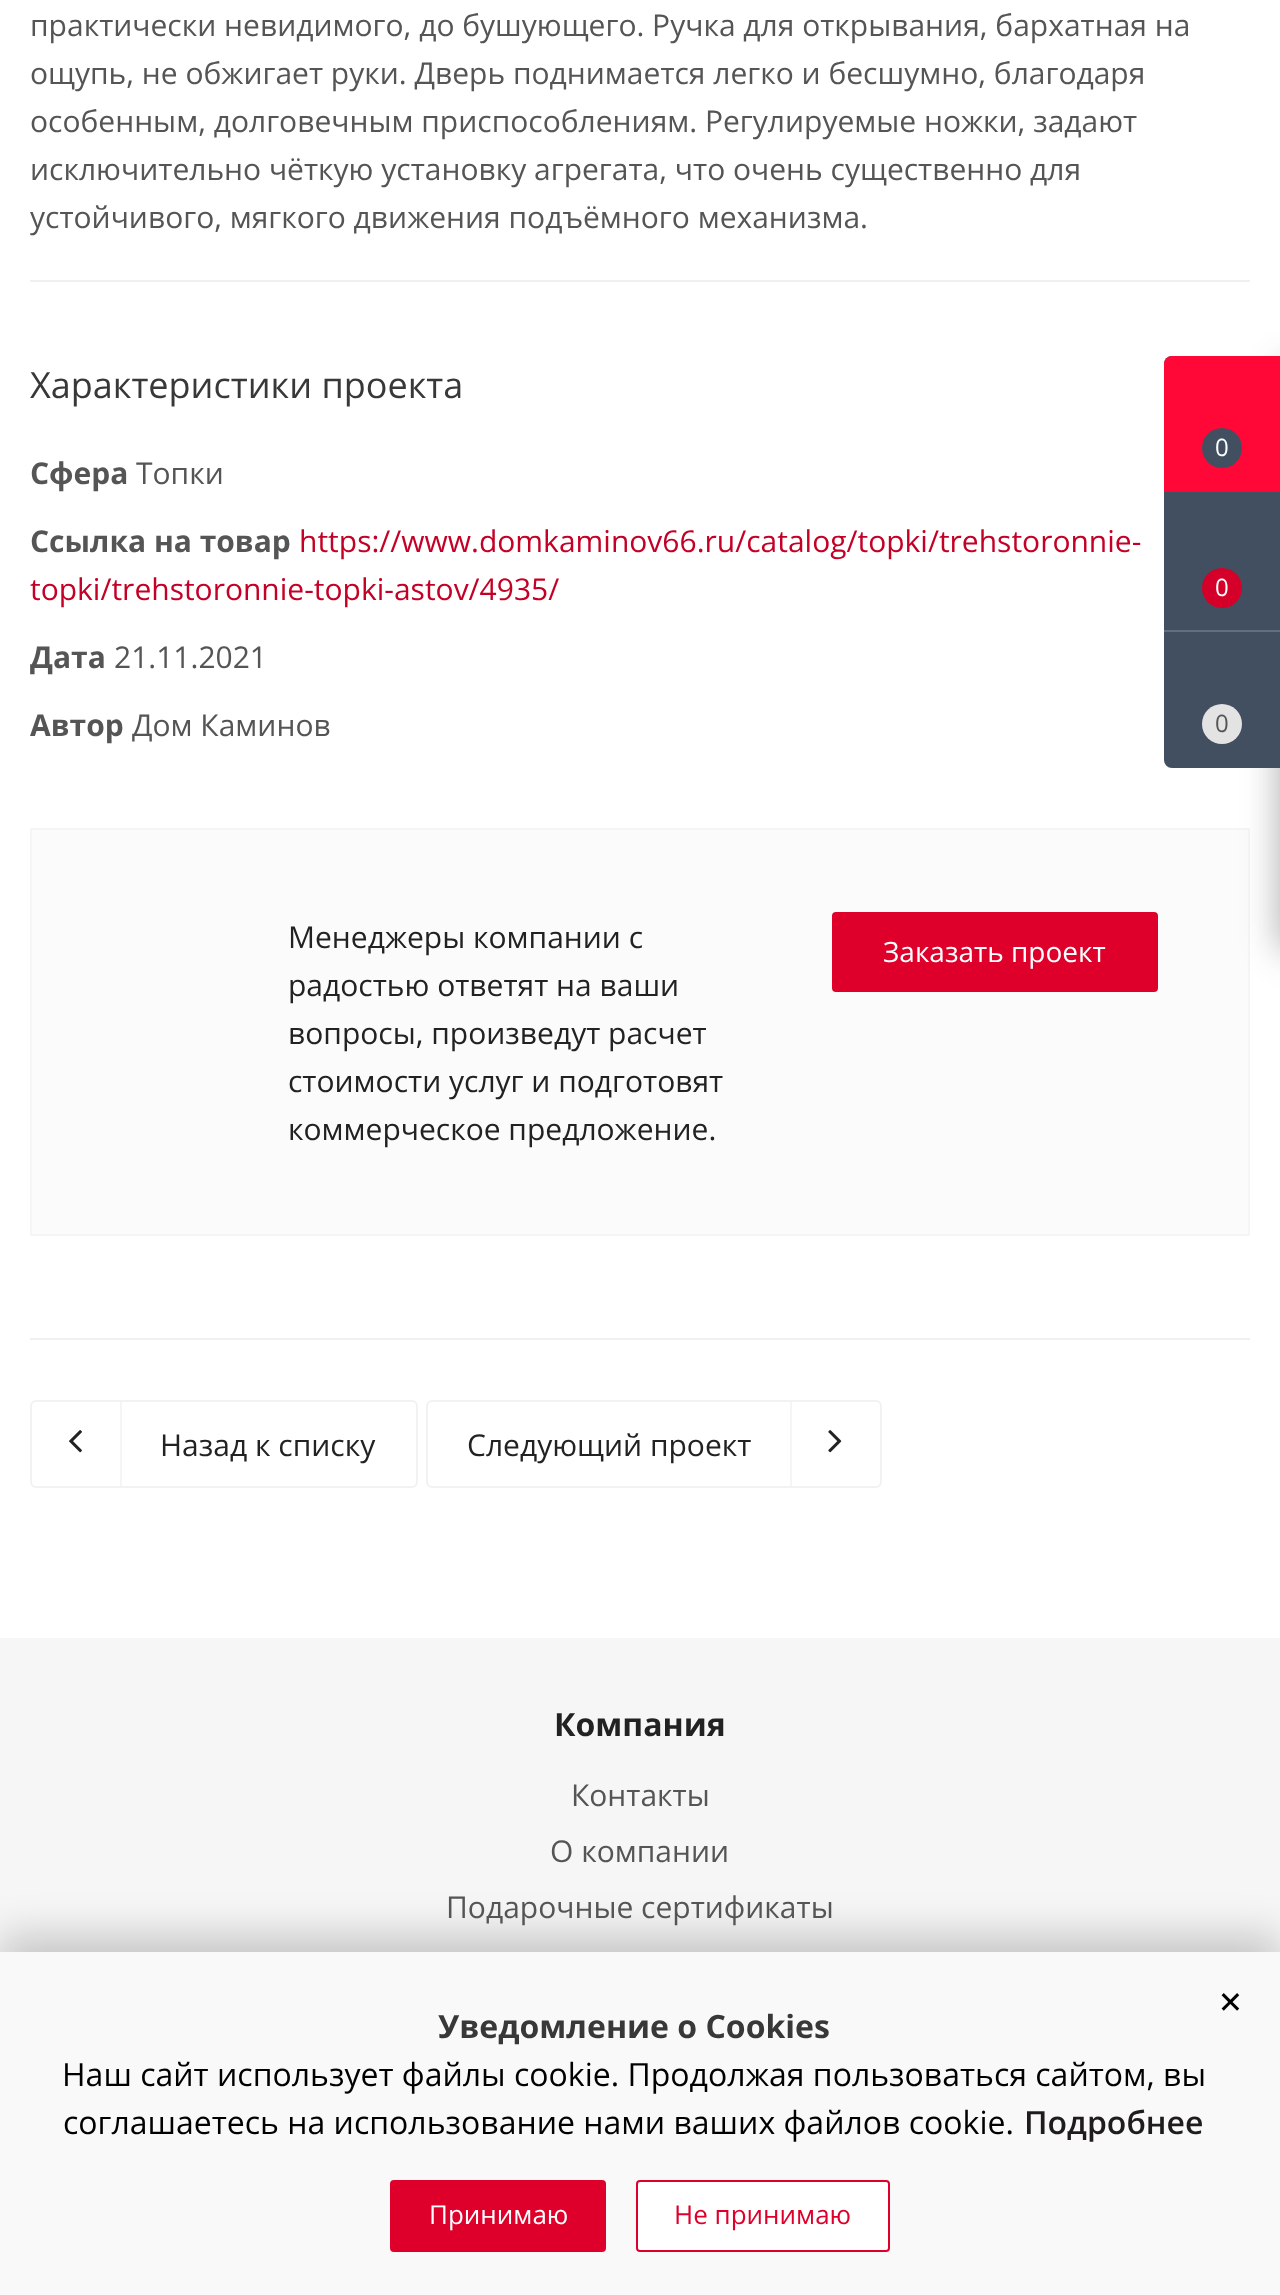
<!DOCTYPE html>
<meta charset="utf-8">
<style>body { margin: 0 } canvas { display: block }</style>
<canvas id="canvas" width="1280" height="2295"></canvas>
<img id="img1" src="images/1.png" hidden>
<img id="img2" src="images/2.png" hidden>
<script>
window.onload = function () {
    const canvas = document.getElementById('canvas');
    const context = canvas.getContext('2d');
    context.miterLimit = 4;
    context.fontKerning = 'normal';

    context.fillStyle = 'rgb(255, 255, 255)';
    context.fillRect(0, 0, 1280, 2295);
    context.fillStyle = 'rgb(240, 240, 240)';
    context.fillRect(30, 280, 1220, 2);
    context.fillStyle = 'rgb(251, 251, 251)';
    context.fillRect(32, 830, 1216, 404);
    context.fillStyle = 'rgb(245, 245, 245)';
    context.fillRect(30, 828, 1220, 2);
    context.fillRect(1248, 828, 2, 408);
    context.fillRect(30, 1234, 1220, 2);
    context.fillRect(30, 828, 2, 408);
    context.fillStyle = 'rgb(222, 0, 43)';
    context.beginPath();
    context.roundRect(833, 913, 324, 78, 3);
    context.fill();
    context.strokeStyle = 'rgb(222, 0, 43)';
    context.lineWidth = 2;
    context.stroke();
    context.fillStyle = 'rgb(240, 240, 240)';
    context.fillRect(30, 1338, 1220, 2);
    context.beginPath();
    context.roundRect(31, 1401, 386, 86, 5);
    context.strokeStyle = 'rgb(242, 242, 242)';
    context.stroke();
    context.drawImage(document.getElementById('img1'), 69, 1430, 13, 23);
    context.fillStyle = 'rgb(245, 245, 245)';
    context.fillRect(120, 1402, 2, 84);
    context.beginPath();
    context.roundRect(427, 1401, 454, 86, 5);
    context.stroke();
    context.fillRect(790, 1402, 2, 84);
    context.drawImage(document.getElementById('img2'), 828, 1430, 14, 23);
    context.fillStyle = 'rgba(44, 44, 44, 0.4)';
    context.filter = 'blur(18px)';
    context.beginPath();
    context.roundRect(1280, 368, 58, 582, 4);
    context.fill();
    context.filter = 'none';
    context.fillStyle = 'rgb(66, 79, 96)';
    context.beginPath();
    context.roundRect(1164, 356, 116, 412, [8, 0, 0, 8]);
    context.fill();
    context.fillStyle = 'rgb(255, 8, 56)';
    context.beginPath();
    context.roundRect(1164, 356, 116, 136, [8, 0, 0, 0]);
    context.fill();
    context.fillStyle = 'rgb(66, 79, 96)';
    context.beginPath();
    context.arc(1222, 448, 20, 0, 2 * Math.PI);
    context.fill();
    context.fillStyle = 'rgb(212, 0, 41)';
    context.beginPath();
    context.arc(1222, 588, 20, 0, 2 * Math.PI);
    context.fill();
    context.fillStyle = 'rgb(99, 111, 125)';
    context.fillRect(1164, 630, 116, 2);
    context.fillStyle = 'rgb(227, 227, 227)';
    context.beginPath();
    context.arc(1222, 724, 20, 0, 2 * Math.PI);
    context.fill();
    context.fillStyle = 'rgb(246, 246, 247)';
    context.fillRect(0, 1638, 1280, 314);
    context.fillStyle = 'rgba(0, 0, 0, 0.2)';
    context.filter = 'blur(20px)';
    context.beginPath();
    context.rect(0, 1936, 1280, 344);
    context.fill();
    context.filter = 'none';
    context.fillStyle = 'rgb(249, 249, 249)';
    context.fillRect(0, 1952, 1280, 343);
    context.fillStyle = 'rgb(222, 0, 43)';
    context.beginPath();
    context.roundRect(391, 2181, 214, 70, 3);
    context.fill();
    context.strokeStyle = 'rgb(222, 0, 43)';
    context.stroke();
    context.fillStyle = 'rgb(255, 255, 255)';
    context.beginPath();
    context.roundRect(637, 2181, 252, 70, 3);
    context.fill();
    context.stroke();
    context.font = '30px Open Sans';
    context.fillStyle = 'rgb(85, 85, 85)';
    context.fillText('практически невидимого, до бушующего. Ручка для открывания, бархатная на', 30, 36);
    context.fillText('ощупь, не обжигает руки. Дверь поднимается легко и бесшумно, благодаря', 30, 84);
    context.fillText('особенным, долговечным приспособлениям. Регулируемые ножки, задают', 30, 132);
    context.fillText('исключительно чёткую установку агрегата, что очень существенно для', 30, 180);
    context.fillText('устойчивого, мягкого движения подъёмного механизма.', 30, 228);
    context.font = '36px Open Sans';
    context.fillStyle = 'rgb(56, 56, 56)';
    context.fillText('Характеристики проекта', 30, 398);
    context.font = 'bold 30px Open Sans';
    context.fillStyle = 'rgb(85, 85, 85)';
    context.fillText('Сфера', 30, 484);
    context.font = '30px Open Sans';
    context.fillText('Топки', 136, 484);
    context.font = 'bold 30px Open Sans';
    context.fillText('Ссылка на товар', 30, 552);
    context.font = '30px Open Sans';
    context.fillStyle = 'rgb(197, 0, 38)';
    context.fillText('https://www.domkaminov66.ru/catalog/topki/trehstoronnie-', 299, 552);
    context.fillText('topki/trehstoronnie-topki-astov/4935/', 30, 600);
    context.font = 'bold 30px Open Sans';
    context.fillStyle = 'rgb(85, 85, 85)';
    context.fillText('Дата', 30, 668);
    context.font = '30px Open Sans';
    context.fillText('21.11.2021', 114, 668);
    context.font = 'bold 30px Open Sans';
    context.fillText('Автор', 30, 736);
    context.font = '30px Open Sans';
    context.fillText('Дом Каминов', 132, 736);
    context.fillStyle = 'rgb(34, 34, 34)';
    context.fillText('Менеджеры компании с', 288, 948);
    context.fillText('радостью ответят на ваши', 288, 996);
    context.fillText('вопросы, произведут расчет', 288, 1044);
    context.fillText('стоимости услуг и подготовят', 288, 1092);
    context.fillText('коммерческое предложение.', 288, 1140);
    context.font = '28px Open Sans';
    context.fillStyle = 'rgb(255, 255, 255)';
    context.fillText('Заказать проект', 883, 962);
    context.font = '30px Open Sans';
    context.fillStyle = 'rgb(34, 34, 34)';
    context.fillText('Назад к списку', 160, 1456);
    context.fillText('Следующий проект', 467, 1456);
    context.font = '24px Open Sans';
    context.fillStyle = 'rgb(255, 255, 255)';
    context.fillText('0', 1215, 456);
    context.fillText('0', 1215, 596);
    context.fillStyle = 'rgb(85, 85, 85)';
    context.fillText('0', 1215, 732);
    context.font = 'bold 32px Open Sans';
    context.fillStyle = 'rgb(34, 34, 34)';
    context.fillText('Компания', 554, 1736);
    context.font = '30px Open Sans';
    context.fillStyle = 'rgb(85, 85, 85)';
    context.fillText('Контакты', 571, 1806);
    context.fillText('О компании', 550, 1862);
    context.fillText('Подарочные сертификаты', 446, 1918);
    context.font = '500 40px Open Sans';
    context.fillStyle = 'rgb(0, 0, 0)';
    context.fillText('×', 1219, 2016);
    context.font = 'bold 32px Open Sans';
    context.fillStyle = 'rgb(56, 56, 56)';
    context.fillText('Уведомление о Cookies', 438, 2038);
    context.font = '32px Open Sans';
    context.fillStyle = 'rgb(0, 0, 0)';
    context.fillText('Наш сайт использует файлы cookie. Продолжая пользоваться сайтом, вы', 62, 2086);
    context.fillText('соглашаетесь на использование нами ваших файлов cookie.', 63, 2134);
    context.font = '600 32px Open Sans';
    context.fillStyle = 'rgb(30, 29, 28)';
    context.fillText('Подробнее', 1024, 2134);
    context.font = '26px Open Sans';
    context.fillStyle = 'rgb(255, 255, 255)';
    context.fillText('Принимаю', 429, 2224);
    context.fillStyle = 'rgb(222, 0, 43)';
    context.fillText('Не принимаю', 674, 2224);
};
</script>
